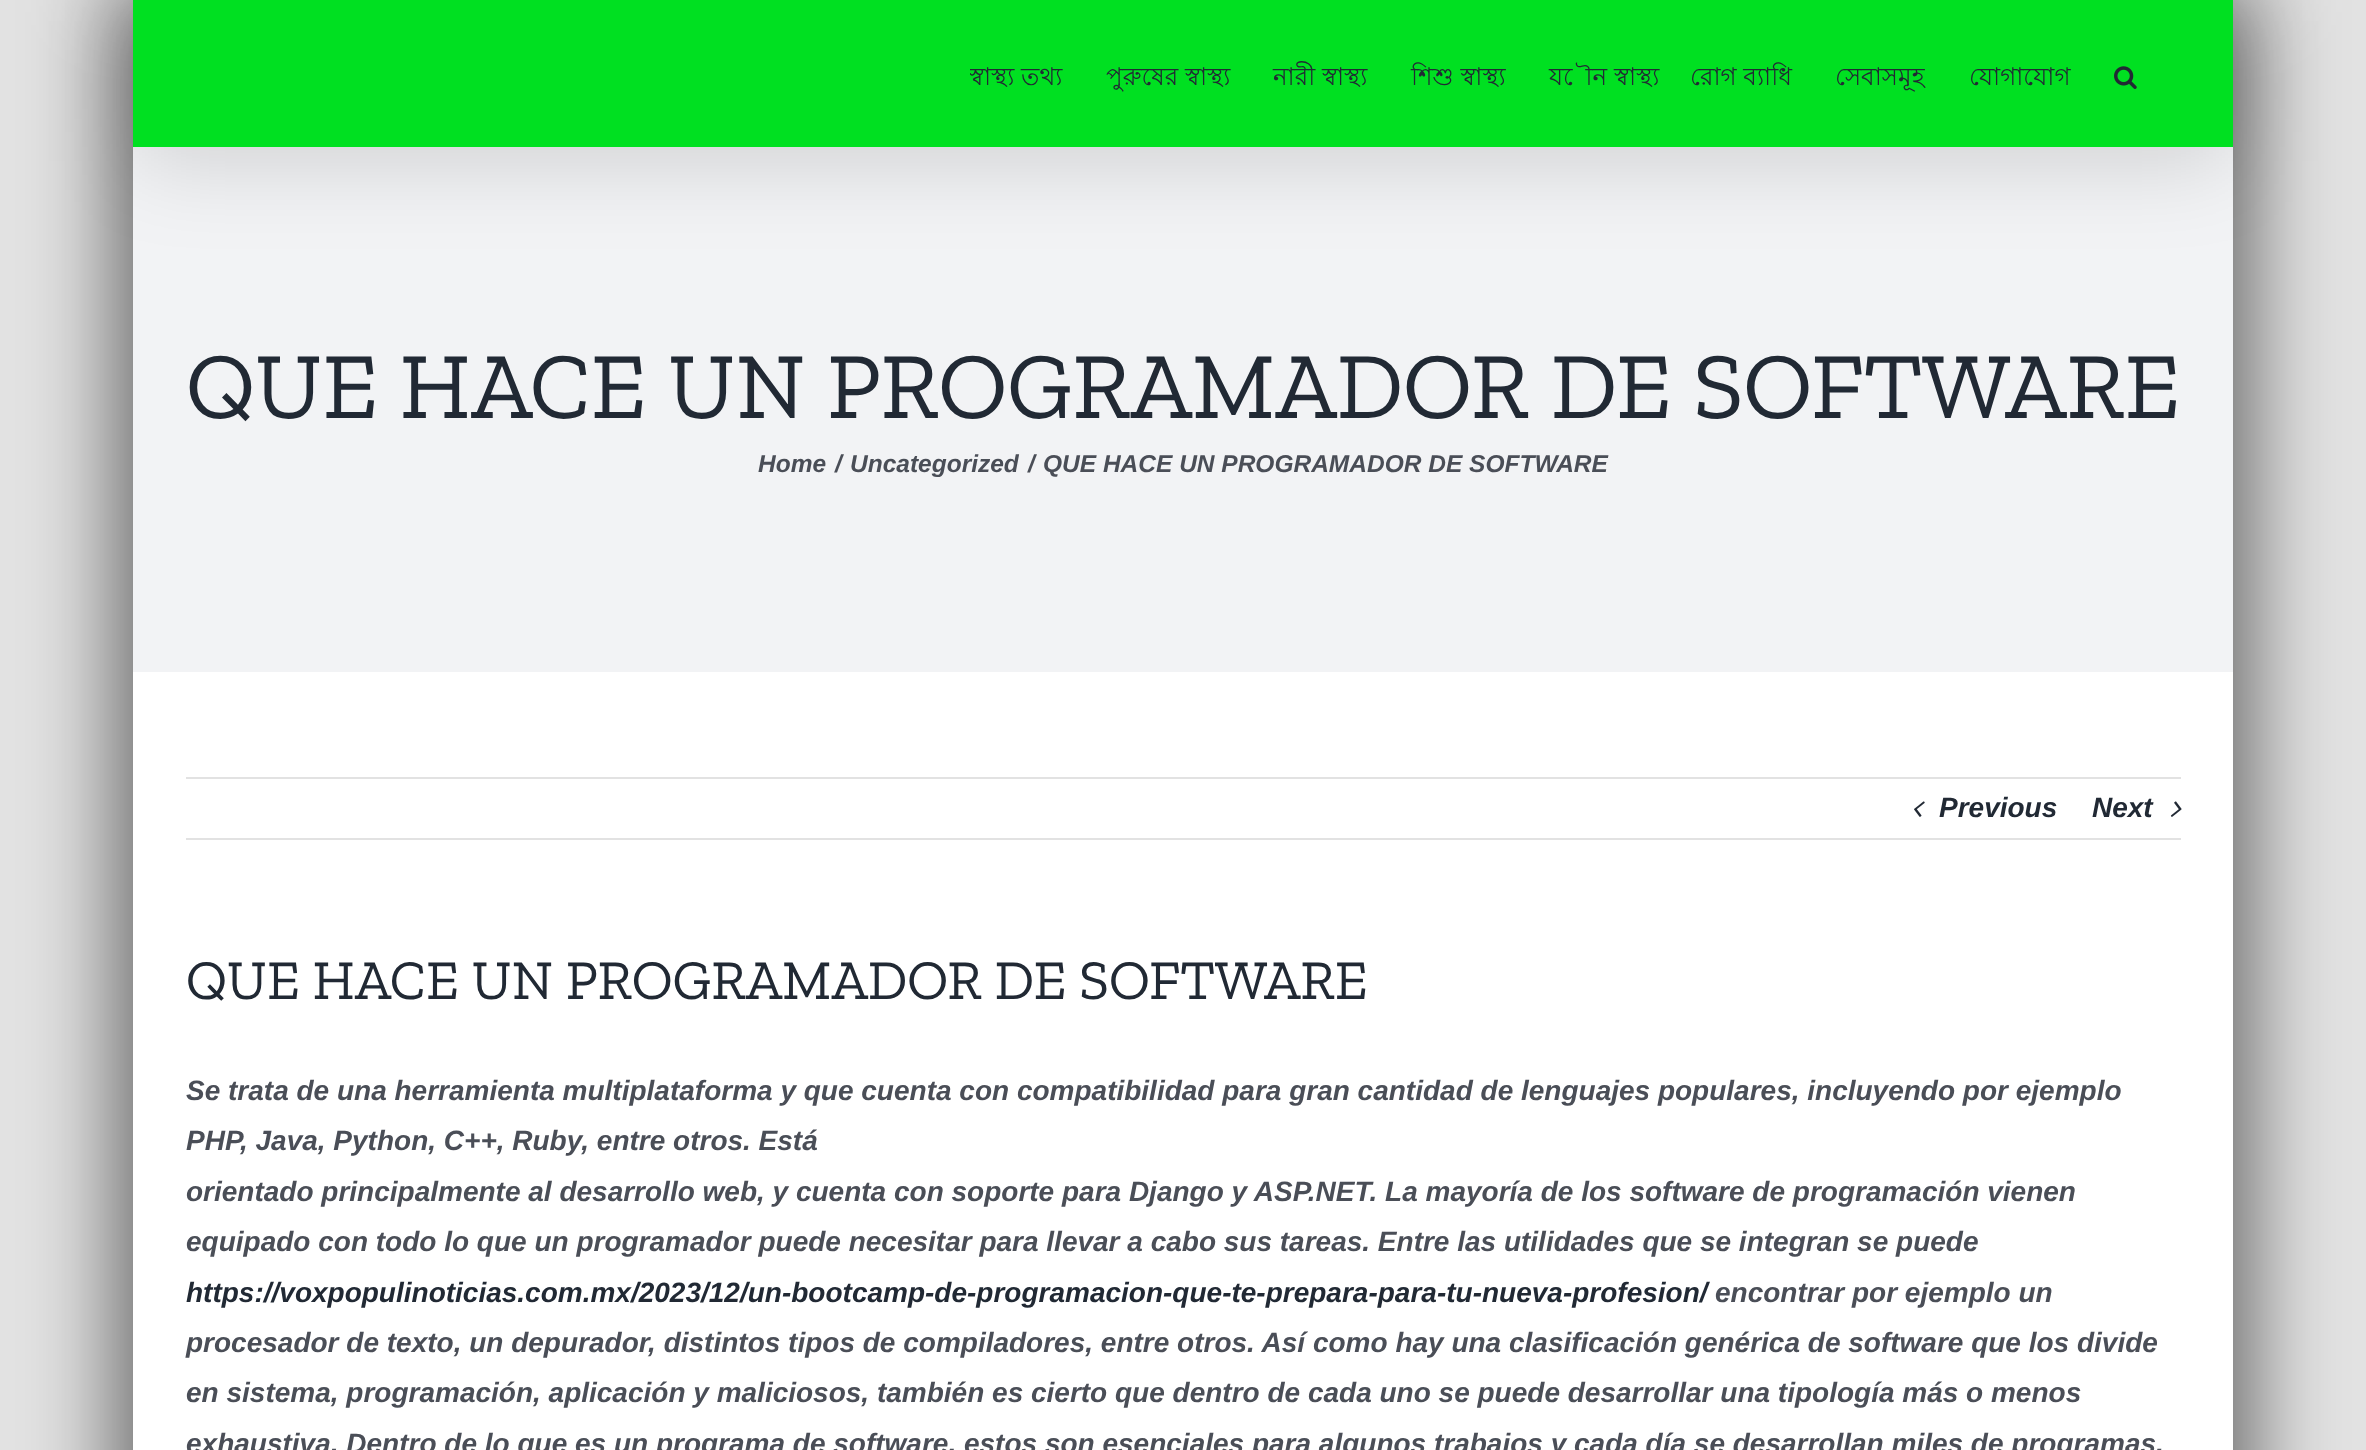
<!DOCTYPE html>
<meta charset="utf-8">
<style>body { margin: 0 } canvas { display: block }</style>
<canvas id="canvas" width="2366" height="1450"></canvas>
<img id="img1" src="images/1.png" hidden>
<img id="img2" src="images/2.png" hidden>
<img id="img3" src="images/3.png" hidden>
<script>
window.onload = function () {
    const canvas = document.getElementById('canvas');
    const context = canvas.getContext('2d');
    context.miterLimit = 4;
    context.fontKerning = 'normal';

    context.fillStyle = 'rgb(226, 226, 226)';
    context.fillRect(0, 0, 2366, 1450);
    context.fillStyle = 'rgba(0, 0, 0, 0.55)';
    context.filter = 'blur(44px)';
    context.beginPath();
    context.rect(116, -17, 2135, 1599);
    context.fill();
    context.filter = 'none';
    context.fillStyle = 'rgb(242, 243, 245)';
    context.fillRect(133, 147, 2100, 525);
    context.fillStyle = 'rgba(0, 0, 0, 0.14)';
    context.filter = 'blur(44px)';
    context.beginPath();
    context.rect(137, 21, 2093, 140);
    context.fill();
    context.filter = 'none';
    context.fillStyle = 'rgb(0, 224, 33)';
    context.fillRect(133, 0, 2100, 147);
    context.drawImage(document.getElementById('img1'), 2114, 66, 23, 23);
    context.fillStyle = 'rgb(255, 255, 255)';
    context.fillRect(133, 672, 2100, 778);
    context.fillStyle = 'rgb(226, 226, 226)';
    context.fillRect(186, 777, 1995, 2);
    context.fillRect(186, 838, 1995, 2);
    context.drawImage(document.getElementById('img2'), 1914, 801, 11, 16);
    context.drawImage(document.getElementById('img3'), 2170, 801, 12, 16);
    context.save();
    context.beginPath();
    context.rect(970, 0, 1211, 147);
    context.clip();
    context.font = '24.5px Lohit Bengali';
    context.fillStyle = 'rgb(33, 41, 52)';
    context.fillText('স্বাস্থ্য তথ্য', 969, 85);
    context.restore();
    context.font = '24.5px Lohit Bengali';
    context.fillStyle = 'rgb(33, 41, 52)';
    context.fillText('পুরুষের স্বাস্থ্য', 1106, 85);
    context.fillText('নারী স্বাস্থ্য', 1273, 85);
    context.fillText('শিশু স্বাস্থ্য', 1411, 85);
    context.fillText('যৌন স্বাস্থ্য', 1549, 85);
    context.fillText('রোগ ব্যাধি', 1690, 85);
    context.fillText('সেবাসমূহ', 1835, 85);
    context.fillText('যোগাযোগ', 1969, 85);
    context.font = '94.5px Zilla Slab';
    context.fillText('QUE HACE UN PROGRAMADOR DE SOFTWARE', 186, 418);
    context.font = 'italic bold 24.5px Liberation Sans';
    context.fillStyle = 'rgb(74, 78, 87)';
    context.fillText('Home', 758, 472);
    context.fillText('/', 835, 472);
    context.fillText('Uncategorized', 850, 472);
    context.fillText('/', 1028, 472);
    context.fillText('QUE HACE UN PROGRAMADOR DE SOFTWARE', 1043, 472);
    context.font = 'italic bold 28px Liberation Sans';
    context.fillStyle = 'rgb(33, 41, 52)';
    context.fillText('Previous', 1939, 817);
    context.fillText('Next', 2092, 817);
    context.font = '56px Zilla Slab';
    context.fillText('QUE HACE UN PROGRAMADOR DE SOFTWARE', 186, 999);
    context.font = 'italic bold 28px Liberation Sans';
    context.fillStyle = 'rgb(74, 78, 87)';
    context.fillText('Se trata de una herramienta multiplataforma y que cuenta con compatibilidad para gran cantidad de lenguajes populares, incluyendo por ejemplo', 186, 1100);
    context.fillText('PHP, Java, Python, C++, Ruby, entre otros. Está', 186, 1150);
    context.fillText('orientado principalmente al desarrollo web, y cuenta con soporte para Django y ASP.NET. La mayoría de los software de programación vienen', 186, 1201);
    context.fillText('equipado con todo lo que un programador puede necesitar para llevar a cabo sus tareas. Entre las utilidades que se integran se puede', 186, 1251);
    context.fillStyle = 'rgb(33, 41, 52)';
    context.fillText('https://voxpopulinoticias.com.mx/2023/12/un-bootcamp-de-programacion-que-te-prepara-para-tu-nueva-profesion/', 186, 1302);
    context.fillStyle = 'rgb(74, 78, 87)';
    context.fillText('encontrar por ejemplo un', 1715, 1302);
    context.fillText('procesador de texto, un depurador, distintos tipos de compiladores, entre otros. Así como hay una clasificación genérica de software que los divide', 186, 1352);
    context.fillText('en sistema, programación, aplicación y maliciosos, también es cierto que dentro de cada uno se puede desarrollar una tipología más o menos', 186, 1402);
    context.fillText('exhaustiva. Dentro de lo que es un programa de software, estos son esenciales para algunos trabajos y cada día se desarrollan miles de programas.', 186, 1453);
};
</script>
